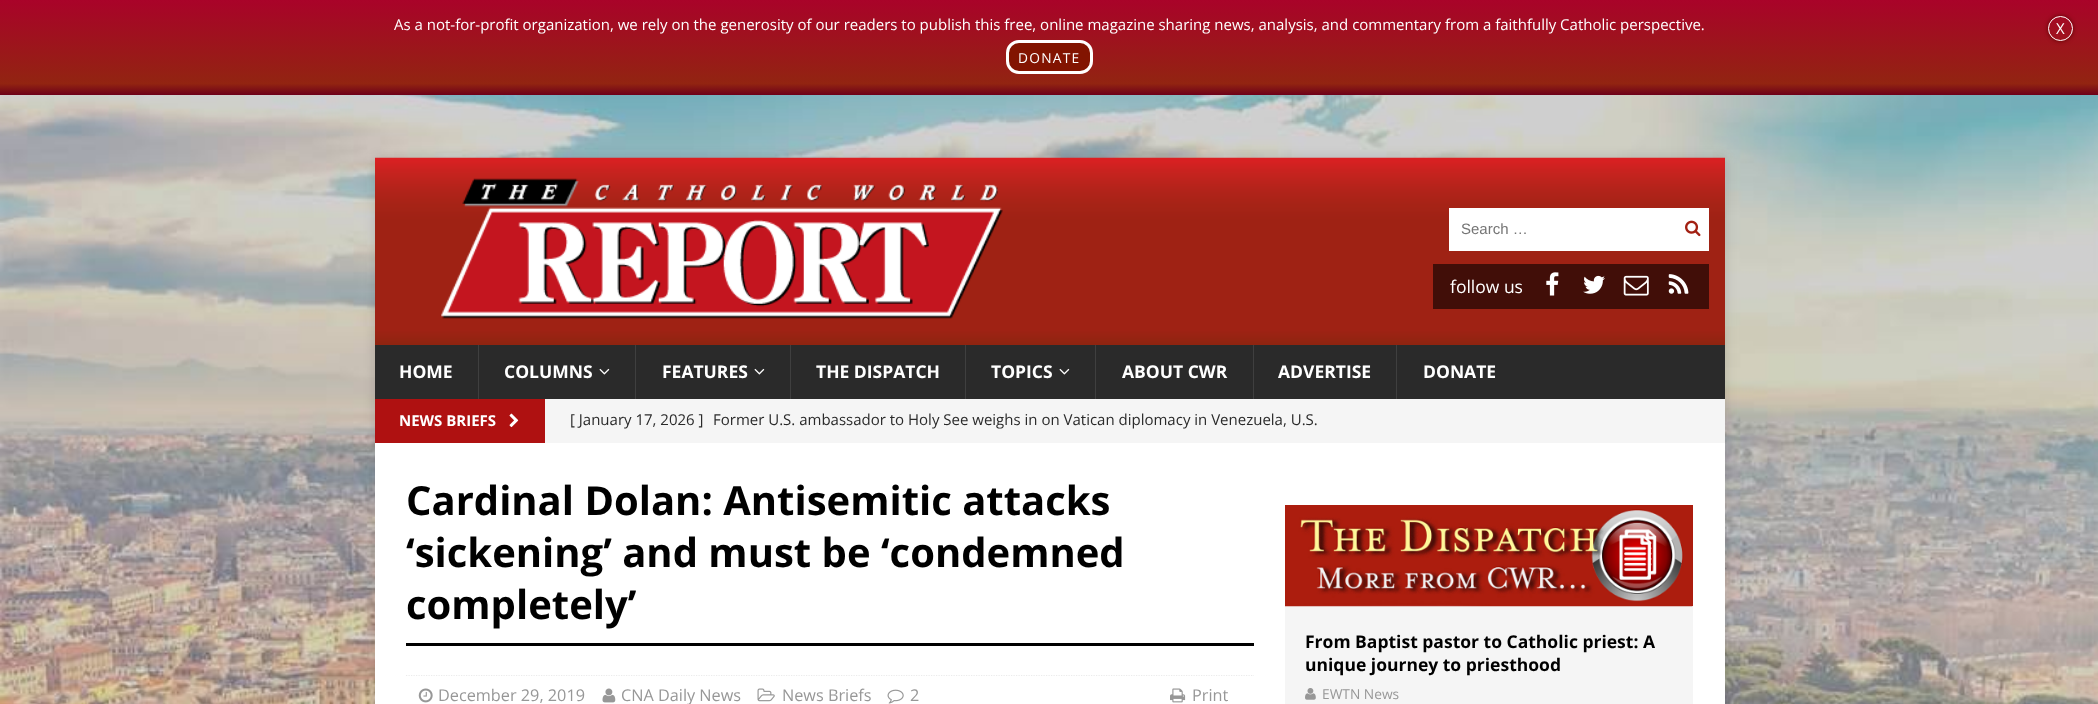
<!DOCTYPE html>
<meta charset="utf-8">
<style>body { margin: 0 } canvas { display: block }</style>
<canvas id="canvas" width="2098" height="704"></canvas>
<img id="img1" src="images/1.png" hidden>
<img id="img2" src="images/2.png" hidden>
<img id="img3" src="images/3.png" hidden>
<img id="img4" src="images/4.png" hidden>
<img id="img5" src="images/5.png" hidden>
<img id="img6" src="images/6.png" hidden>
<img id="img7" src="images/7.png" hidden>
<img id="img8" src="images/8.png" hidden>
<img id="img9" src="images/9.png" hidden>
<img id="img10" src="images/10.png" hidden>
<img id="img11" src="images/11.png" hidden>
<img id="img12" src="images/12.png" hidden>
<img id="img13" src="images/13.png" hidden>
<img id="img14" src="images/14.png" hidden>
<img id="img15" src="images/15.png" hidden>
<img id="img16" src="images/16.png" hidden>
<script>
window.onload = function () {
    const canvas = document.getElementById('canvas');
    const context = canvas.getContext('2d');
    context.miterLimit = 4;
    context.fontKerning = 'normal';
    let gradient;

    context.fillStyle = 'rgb(255, 255, 255)';
    context.fillRect(0, 0, 2098, 704);
    context.drawImage(document.getElementById('img1'), 0, 95, 2098, 609);
    gradient = context.createLinearGradient(1049, 0, 1049, 95);
    gradient.addColorStop(0, 'rgb(169, 3, 41)');
    gradient.addColorStop(0.88, 'rgb(146, 36, 17)');
    gradient.addColorStop(1, 'rgb(109, 0, 25)');
    context.fillStyle = gradient;
    context.fillRect(0, 0, 2098, 95);
    context.fillStyle = 'rgb(130, 20, 1)';
    context.beginPath();
    context.roundRect(1007.5, 41.5, 84, 31, 11.5);
    context.fill();
    context.strokeStyle = 'rgb(255, 255, 255)';
    context.lineWidth = 3;
    context.stroke();
    context.save();
    context.beginPath();
    context.moveTo(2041, 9);
    context.lineTo(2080, 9);
    context.lineTo(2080, 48);
    context.lineTo(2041, 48);
    context.closePath();
    context.moveTo(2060.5, 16);
    context.bezierCurveTo(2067.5, 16, 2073, 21.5, 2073, 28.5);
    context.bezierCurveTo(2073, 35.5, 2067.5, 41, 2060.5, 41);
    context.bezierCurveTo(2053.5, 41, 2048, 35.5, 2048, 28.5);
    context.bezierCurveTo(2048, 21.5, 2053.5, 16, 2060.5, 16);
    context.closePath();
    context.clip('evenodd');
    context.fillStyle = 'rgb(89, 3, 0)';
    context.filter = 'blur(2px)';
    context.beginPath();
    context.roundRect(2048, 16, 25, 25, 12.5);
    context.fill();
    context.filter = 'none';
    context.restore();
    context.beginPath();
    context.arc(2060.5, 28.5, 12, 0, 2 * Math.PI);
    context.lineWidth = 1;
    context.stroke();
    context.fillStyle = 'rgba(50, 50, 50, 0.17)';
    context.filter = 'blur(6px)';
    context.beginPath();
    context.rect(375, 158, 1350, 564);
    context.fill();
    context.filter = 'none';
    context.drawImage(document.getElementById('img2'), 375, 157, 1350, 188);
    context.fillStyle = 'rgb(255, 255, 255)';
    context.fillRect(1449, 208, 260, 43);
    context.drawImage(document.getElementById('img3'), 1685, 220, 16, 17);
    context.fillStyle = 'rgb(65, 14, 8)';
    context.fillRect(1433, 264, 276, 45);
    context.drawImage(document.getElementById('img4'), 1546, 272, 13, 24);
    context.drawImage(document.getElementById('img5'), 1583, 275, 22, 19);
    context.drawImage(document.getElementById('img6'), 1623, 275, 26, 21);
    context.drawImage(document.getElementById('img7'), 1668, 274, 21, 20);
    context.fillStyle = 'rgb(42, 42, 42)';
    context.fillRect(375, 345, 1350, 54);
    context.fillStyle = 'rgb(63, 63, 63)';
    context.fillRect(478, 345, 1, 54);
    context.drawImage(document.getElementById('img8'), 599, 368, 11, 7);
    context.fillRect(635, 345, 1, 54);
    context.drawImage(document.getElementById('img8'), 754, 368, 11, 7);
    context.fillRect(790, 345, 1, 54);
    context.fillRect(965, 345, 1, 54);
    context.drawImage(document.getElementById('img8'), 1059, 368, 11, 7);
    context.fillRect(1095, 345, 1, 54);
    context.fillRect(1253, 345, 1, 54);
    context.fillRect(1396, 345, 1, 54);
    context.fillStyle = 'rgb(245, 245, 245)';
    context.fillRect(545, 399, 1180, 44);
    context.fillStyle = 'rgb(175, 17, 17)';
    context.fillRect(375, 399, 170, 44);
    context.drawImage(document.getElementById('img9'), 509, 413, 10, 15);
    context.fillStyle = 'rgb(255, 255, 255)';
    context.fillRect(375, 443, 1350, 261);
    context.fillStyle = 'rgb(0, 0, 0)';
    context.fillRect(406, 643, 848, 3);
    context.beginPath();
    context.moveTo(406, 675.5);
    context.lineTo(1254, 675.5);
    context.strokeStyle = 'rgb(235, 235, 235)';
    context.lineWidth = 1.2;
    context.setLineDash([1.25, 1.25]);
    context.stroke();
    context.drawImage(document.getElementById('img10'), 418, 688, 15, 15);
    context.drawImage(document.getElementById('img11'), 602, 688, 14, 15);
    context.drawImage(document.getElementById('img12'), 757, 688, 18, 14);
    context.drawImage(document.getElementById('img13'), 887, 689, 17, 15);
    context.drawImage(document.getElementById('img14'), 1170, 688, 16, 15);
    context.fillStyle = 'rgb(245, 245, 245)';
    context.fillRect(1285, 606, 408, 98);
    context.fillStyle = 'rgb(172, 29, 14)';
    context.fillRect(1285, 505, 408, 101);
    context.drawImage(document.getElementById('img15'), 1285, 509, 408, 98);
    context.drawImage(document.getElementById('img16'), 1305, 688, 11, 12);
    context.font = '15px Open Sans';
    context.fillStyle = 'rgb(255, 255, 255)';
    context.fillText('As a not-for-profit organization, we rely on the generosity of our readers to publish this free, online magazine sharing news, analysis, and commentary from a faithfully Catholic perspective.', 394, 30);
    context.letterSpacing = '1.25px';
    context.font = '13.75px Open Sans';
    context.fillText('DONATE', 1018, 63);
    context.letterSpacing = '0px';
    context.font = '15px Open Sans';
    context.fillText('X', 2056, 34);
    context.font = '15px Liberation Sans';
    context.fillStyle = 'rgb(117, 117, 117)';
    context.fillText('Search …', 1461, 234);
    context.font = '17.5px Open Sans';
    context.fillStyle = 'rgb(255, 255, 255)';
    context.fillText('follow us', 1450, 293);
    context.font = 'bold 17.5px Open Sans';
    context.fillText('HOME', 399, 378);
    context.fillText('COLUMNS', 504, 378);
    context.fillText('FEATURES', 662, 378);
    context.fillText('THE DISPATCH', 816, 378);
    context.fillText('TOPICS', 991, 378);
    context.fillText('ABOUT CWR', 1122, 378);
    context.fillText('ADVERTISE', 1278, 378);
    context.fillText('DONATE', 1423, 378);
    context.font = 'bold 15px Open Sans';
    context.fillText('NEWS BRIEFS', 399, 426);
    context.font = '15px Open Sans';
    context.fillStyle = 'rgb(42, 42, 42)';
    context.fillText('[ January 17, 2026 ]', 570, 425);
    context.fillText('Former U.S. ambassador to Holy See weighs in on Vatican diplomacy in Venezuela, U.S.', 713, 425);
    context.font = 'bold 40px Open Sans';
    context.fillStyle = 'rgb(0, 0, 0)';
    context.fillText('Cardinal Dolan: Antisemitic attacks', 406, 515);
    context.fillText('‘sickening’ and must be ‘condemned', 406, 567);
    context.fillText('completely’', 406, 619);
    context.font = '16.25px Open Sans';
    context.fillStyle = 'rgb(151, 151, 151)';
    context.fillText('December 29, 2019', 438, 701);
    context.fillText('CNA Daily News', 621, 701);
    context.fillText('News Briefs', 782, 701);
    context.fillText('2', 910, 701);
    context.fillText('Print', 1192, 701);
    context.font = 'bold 17.5px Open Sans';
    context.fillStyle = 'rgb(0, 0, 0)';
    context.fillText('From Baptist pastor to Catholic priest: A', 1305, 648);
    context.fillText('unique journey to priesthood', 1305, 671);
    context.font = '13.75px Open Sans';
    context.fillStyle = 'rgb(151, 151, 151)';
    context.fillText('EWTN News', 1322, 699);
};
</script>
